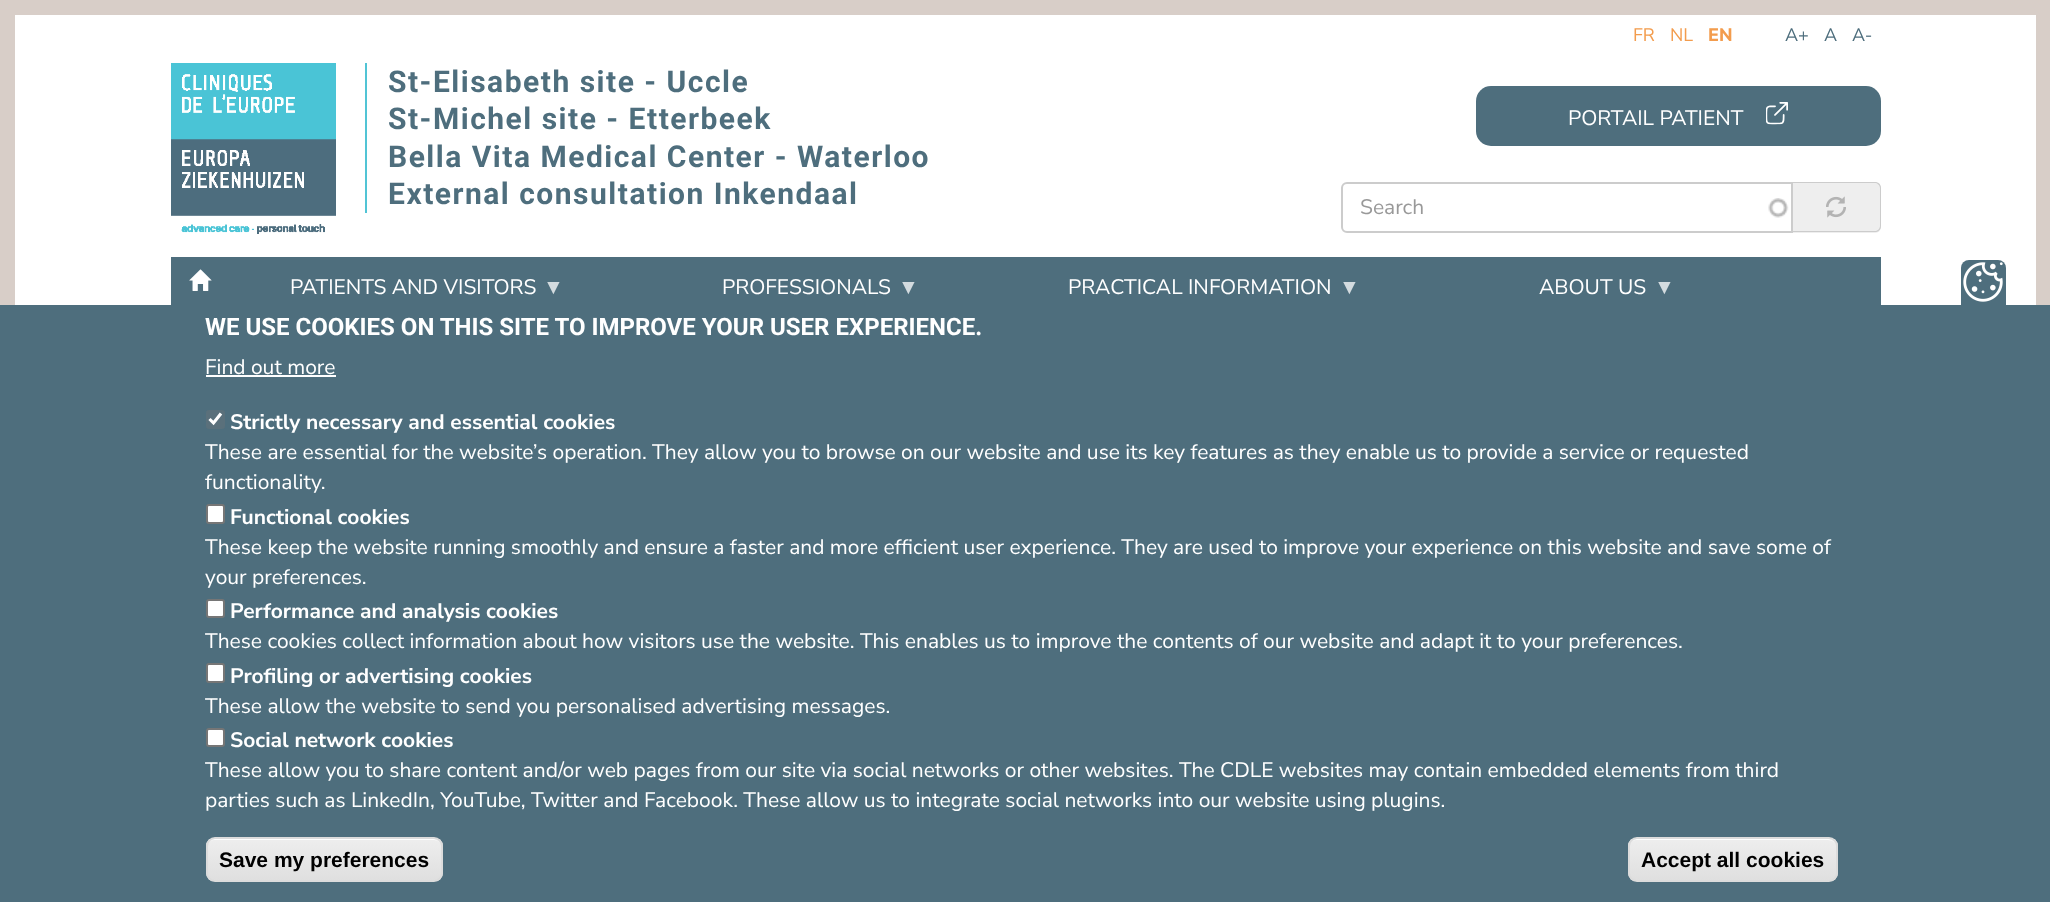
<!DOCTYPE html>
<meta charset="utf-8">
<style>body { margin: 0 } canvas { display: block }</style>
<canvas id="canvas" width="2050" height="902"></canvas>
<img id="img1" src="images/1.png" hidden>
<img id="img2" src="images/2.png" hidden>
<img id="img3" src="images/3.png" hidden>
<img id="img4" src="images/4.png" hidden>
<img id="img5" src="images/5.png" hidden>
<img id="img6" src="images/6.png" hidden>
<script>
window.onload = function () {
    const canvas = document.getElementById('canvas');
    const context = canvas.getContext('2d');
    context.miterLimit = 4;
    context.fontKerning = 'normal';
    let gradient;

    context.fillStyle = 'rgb(255, 255, 255)';
    context.fillRect(0, 0, 2050, 902);
    context.fillStyle = 'rgb(216, 206, 200)';
    context.fillRect(15, 0, 2021, 15);
    context.fillRect(2036, 0, 14, 305);
    context.fillRect(0, 0, 15, 305);
    context.drawImage(document.getElementById('img1'), 171, 63, 165, 171);
    context.fillStyle = 'rgb(81, 196, 213)';
    context.fillRect(365, 63, 2, 150);
    context.fillStyle = 'rgb(78, 110, 125)';
    context.beginPath();
    context.roundRect(1476, 86, 405, 60, 15);
    context.fill();
    context.drawImage(document.getElementById('img2'), 1766, 102, 22, 23);
    context.fillStyle = 'rgb(238, 238, 238)';
    context.beginPath();
    context.roundRect(1793, 182, 88, 51, [0, 6, 6, 0]);
    context.fill();
    context.fillStyle = 'rgb(204, 204, 204)';
    context.beginPath();
    context.moveTo(1792, 182);
    context.lineTo(1875, 182);
    context.bezierCurveTo(1878, 182, 1881, 184, 1881, 188);
    context.lineTo(1881, 226);
    context.bezierCurveTo(1881, 230, 1878, 232, 1875, 232);
    context.lineTo(1792, 232);
    context.closePath();
    context.moveTo(1792, 183);
    context.lineTo(1875, 183);
    context.bezierCurveTo(1877, 183, 1880, 185, 1880, 188);
    context.lineTo(1880, 226);
    context.bezierCurveTo(1880, 229, 1877, 231, 1875, 231);
    context.lineTo(1792, 231);
    context.closePath();
    context.fill('evenodd');
    context.fillStyle = 'rgb(255, 255, 255)';
    context.beginPath();
    context.roundRect(1341, 182, 452, 51, [6, 0, 0, 6]);
    context.fill();
    context.drawImage(document.getElementById('img3'), 1768, 198, 21, 20);
    context.beginPath();
    context.roundRect(1342, 183, 450, 49, [5, 0, 0, 5]);
    context.strokeStyle = 'rgb(204, 204, 204)';
    context.lineWidth = 2;
    context.stroke();
    context.drawImage(document.getElementById('img4'), 1826, 196, 20, 22);
    context.fillStyle = 'rgb(78, 110, 125)';
    context.fillRect(171, 257, 1710, 48);
    context.drawImage(document.getElementById('img5'), 189, 269, 23, 22);
    context.fillRect(0, 305, 2050, 597);
    context.beginPath();
    context.roundRect(1961, 260, 45, 45, [8, 8, 0, 0]);
    context.fill();
    context.drawImage(document.getElementById('img6'), 1963, 262, 40, 40);
    context.fillStyle = 'rgb(255, 255, 255)';
    context.fillRect(206, 375, 130, 2);
    context.fillStyle = 'rgb(90, 112, 123)';
    context.beginPath();
    context.roundRect(206, 410, 19, 19, 3);
    context.fill();
    context.beginPath();
    context.moveTo(209.5, 419);
    context.lineTo(213.5, 423);
    context.lineTo(221, 413.5);
    context.strokeStyle = 'rgb(255, 255, 255)';
    context.lineWidth = 3.1;
    context.stroke();
    context.fillStyle = 'rgb(255, 255, 255)';
    context.beginPath();
    context.roundRect(207, 505, 17, 18, 2);
    context.fill();
    context.strokeStyle = 'rgb(118, 118, 118)';
    context.lineWidth = 2;
    context.stroke();
    context.beginPath();
    context.roundRect(207, 600, 17, 17, 2);
    context.fill();
    context.stroke();
    context.beginPath();
    context.roundRect(207, 664, 17, 18, 2);
    context.fill();
    context.stroke();
    context.beginPath();
    context.roundRect(207, 729, 17, 17, 2);
    context.fill();
    context.stroke();
    context.save();
    context.beginPath();
    context.roundRect(206, 837, 237, 45, 9);
    context.clip();
    gradient = context.createLinearGradient(324, 839, 324, 881);
    gradient.addColorStop(0.05, 'rgb(237, 237, 237)');
    gradient.addColorStop(1, 'rgb(223, 223, 223)');
    context.fillStyle = gradient;
    context.fillRect(206, 839, 237, 42);
    context.restore();
    context.beginPath();
    context.moveTo(214, 840);
    context.lineTo(434, 840);
    context.bezierCurveTo(438, 840, 441, 843, 441, 848);
    context.lineTo(441, 847);
    context.bezierCurveTo(441, 843, 437, 839, 433, 839);
    context.lineTo(215, 839);
    context.bezierCurveTo(211, 839, 207, 843, 207, 847);
    context.lineTo(207, 848);
    context.bezierCurveTo(207, 843, 210, 840, 214, 840);
    context.closePath();
    context.fill();
    context.beginPath();
    context.roundRect(207, 838, 235, 43, 8);
    context.strokeStyle = 'rgb(220, 220, 220)';
    context.stroke();
    context.save();
    context.beginPath();
    context.roundRect(1628, 837, 210, 45, 9);
    context.clip();
    gradient = context.createLinearGradient(1733, 839, 1733, 881);
    gradient.addColorStop(0.05, 'rgb(237, 237, 237)');
    gradient.addColorStop(1, 'rgb(223, 223, 223)');
    context.fillStyle = gradient;
    context.fillRect(1628, 839, 210, 42);
    context.restore();
    context.beginPath();
    context.moveTo(1636, 840);
    context.lineTo(1828, 840);
    context.bezierCurveTo(1833, 840, 1836, 843, 1836, 848);
    context.lineTo(1836, 847);
    context.bezierCurveTo(1836, 843, 1832, 839, 1828, 839);
    context.lineTo(1637, 839);
    context.bezierCurveTo(1633, 839, 1629, 843, 1629, 847);
    context.lineTo(1629, 848);
    context.bezierCurveTo(1629, 843, 1632, 840, 1636, 840);
    context.closePath();
    context.fill();
    context.beginPath();
    context.roundRect(1629, 838, 208, 43, 8);
    context.stroke();
    context.font = '18px Nunito Sans';
    context.fillStyle = 'rgb(243, 156, 77)';
    context.fillText('FR', 1633, 41);
    context.fillText('NL', 1670, 41);
    context.font = '800 18px Nunito Sans';
    context.fillText('EN', 1708, 41);
    context.font = '18px Nunito Sans';
    context.fillStyle = 'rgb(78, 110, 125)';
    context.fillText('A+', 1785, 41);
    context.fillText('A', 1824, 41);
    context.fillText('A-', 1852, 41);
    context.letterSpacing = '1.5px';
    context.font = 'bold 30px Roboto';
    context.fillText('St-Elisabeth site - Uccle', 388, 92);
    context.fillText('St-Michel site - Etterbeek', 388, 129);
    context.fillText('Bella Vita Medical Center - Waterloo', 388, 167);
    context.fillText('External consultation Inkendaal', 388, 204);
    context.letterSpacing = '0px';
    context.font = '21px Nunito Sans';
    context.fillStyle = 'rgb(255, 255, 255)';
    context.fillText('PORTAIL PATIENT', 1568, 125);
    context.fillStyle = 'rgb(153, 153, 153)';
    context.fillText('Search', 1360, 214);
    context.fillStyle = 'rgb(255, 255, 255)';
    context.fillText('PATIENTS AND VISITORS', 290, 294);
    context.font = '21px Liberation Sans';
    context.fillStyle = 'rgb(211, 219, 223)';
    context.fillText('▼', 543, 294);
    context.font = '21px Nunito Sans';
    context.fillStyle = 'rgb(255, 255, 255)';
    context.fillText('PROFESSIONALS', 722, 294);
    context.font = '21px Liberation Sans';
    context.fillStyle = 'rgb(211, 219, 223)';
    context.fillText('▼', 898, 294);
    context.font = '21px Nunito Sans';
    context.fillStyle = 'rgb(255, 255, 255)';
    context.fillText('PRACTICAL INFORMATION', 1068, 294);
    context.font = '21px Liberation Sans';
    context.fillStyle = 'rgb(211, 219, 223)';
    context.fillText('▼', 1339, 294);
    context.font = '21px Nunito Sans';
    context.fillStyle = 'rgb(255, 255, 255)';
    context.fillText('ABOUT US', 1539, 294);
    context.font = '21px Liberation Sans';
    context.fillStyle = 'rgb(211, 219, 223)';
    context.fillText('▼', 1654, 294);
    context.font = 'bold 24px Roboto';
    context.fillStyle = 'rgb(255, 255, 255)';
    context.fillText('WE USE COOKIES ON THIS SITE TO IMPROVE YOUR USER EXPERIENCE.', 205, 335);
    context.font = '21px Nunito Sans';
    context.fillText('Find out more', 205, 374);
    context.font = 'bold 21px Nunito Sans';
    context.fillText('Strictly necessary and essential cookies', 230, 429);
    context.font = '21px Nunito Sans';
    context.fillText('These are essential for the website’s operation. They allow you to browse on our website and use its key features as they enable us to provide a service or requested', 205, 459);
    context.fillText('functionality.', 205, 489);
    context.font = 'bold 21px Nunito Sans';
    context.fillText('Functional cookies', 230, 524);
    context.font = '21px Nunito Sans';
    context.fillText('These keep the website running smoothly and ensure a faster and more efficient user experience. They are used to improve your experience on this website and save some of', 205, 554);
    context.fillText('your preferences.', 205, 584);
    context.font = 'bold 21px Nunito Sans';
    context.fillText('Performance and analysis cookies', 230, 618);
    context.font = '21px Nunito Sans';
    context.fillText('These cookies collect information about how visitors use the website. This enables us to improve the contents of our website and adapt it to your preferences.', 205, 648);
    context.font = 'bold 21px Nunito Sans';
    context.fillText('Profiling or advertising cookies', 230, 683);
    context.font = '21px Nunito Sans';
    context.fillText('These allow the website to send you personalised advertising messages.', 205, 713);
    context.font = 'bold 21px Nunito Sans';
    context.fillText('Social network cookies', 230, 747);
    context.font = '21px Nunito Sans';
    context.fillText('These allow you to share content and/or web pages from our site via social networks or other websites. The CDLE websites may contain embedded elements from third', 205, 777);
    context.fillText('parties such as LinkedIn, YouTube, Twitter and Facebook. These allow us to integrate social networks into our website using plugins.', 205, 807);
    context.font = 'bold 21px Liberation Sans';
    context.fillStyle = 'rgb(0, 0, 0)';
    context.fillText('Save my preferences', 219, 867);
    context.fillText('Accept all cookies', 1641, 867);
};
</script>
